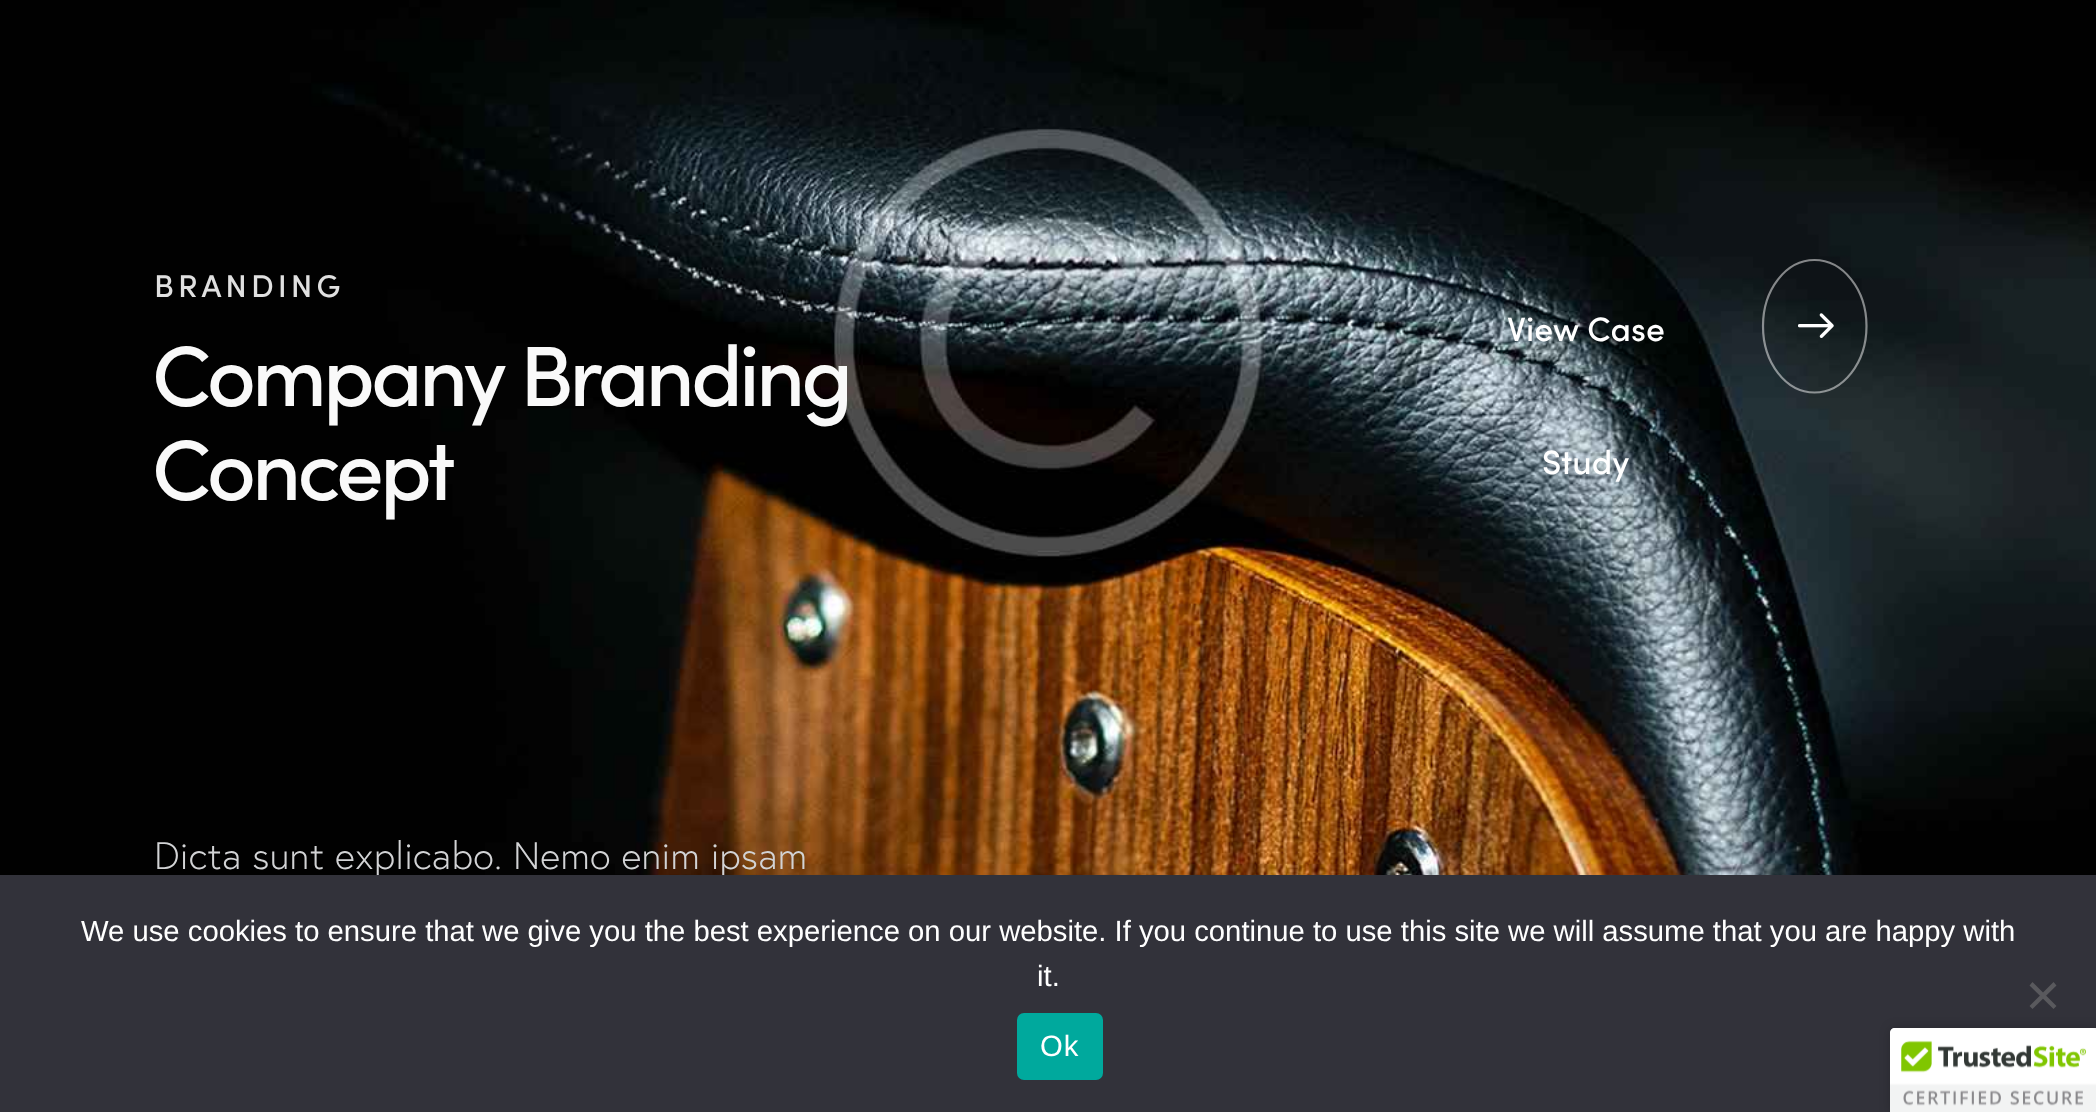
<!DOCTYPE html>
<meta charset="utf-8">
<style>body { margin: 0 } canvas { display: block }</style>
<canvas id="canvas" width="2096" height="1112"></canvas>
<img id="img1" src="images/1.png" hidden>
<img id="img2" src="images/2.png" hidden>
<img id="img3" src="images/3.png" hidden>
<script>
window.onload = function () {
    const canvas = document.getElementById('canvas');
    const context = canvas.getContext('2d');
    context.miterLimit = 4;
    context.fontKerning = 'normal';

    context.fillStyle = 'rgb(255, 255, 255)';
    context.fillRect(0, 0, 2096, 1112);
    context.drawImage(document.getElementById('img1'), 0, 0, 2096, 875);
    context.beginPath();
    context.moveTo(1814.5, 260);
    context.bezierCurveTo(1843, 260, 1866.5, 289.5, 1866.5, 326);
    context.bezierCurveTo(1866.5, 363, 1843, 392.5, 1814.5, 392.5);
    context.bezierCurveTo(1786, 392.5, 1763, 363, 1763, 326);
    context.bezierCurveTo(1763, 289.5, 1786, 260, 1814.5, 260);
    context.closePath();
    context.strokeStyle = 'rgba(249, 249, 249, 0.5)';
    context.lineWidth = 2.2;
    context.stroke();
    context.drawImage(document.getElementById('img2'), 1798, 313, 36, 25);
    context.letterSpacing = '4px';
    context.font = '500 31.5px Sofia';
    context.fillStyle = 'rgb(224, 224, 224)';
    context.fillText('BRANDING', 154, 297);
    context.letterSpacing = '-4px';
    context.font = '500 85.5px Sofia';
    context.fillStyle = 'rgb(249, 249, 249)';
    context.fillText('Company Branding', 152, 406);
    context.fillText('Concept', 152, 500);
    context.letterSpacing = '0.25px';
    context.font = '300 38.25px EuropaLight';
    context.fillStyle = 'rgb(210, 211, 213)';
    context.fillText('Dicta sunt explicabo. Nemo enim ipsam', 154, 869);
    context.letterSpacing = '0px';
    context.font = '500 33.75px Sofia';
    context.fillStyle = 'rgb(255, 255, 255)';
    context.fillText('View Case', 1507, 341);
    context.fillText('Study', 1542, 474);
    context.fillStyle = 'rgb(50, 50, 58)';
    context.fillRect(0, 875, 2096, 237);
    context.font = '29.25px Liberation Sans';
    context.fillStyle = 'rgb(255, 255, 255)';
    context.fillText('We use cookies to ensure that we give you the best experience on our website. If you continue to use this site we will assume that you are happy with', 81, 941);
    context.fillText('it.', 1037, 986);
    context.fillStyle = 'rgb(89, 89, 93)';
    context.beginPath();
    context.moveTo(2053.5, 982);
    context.lineTo(2056.5, 985.5);
    context.lineTo(2032.5, 1009);
    context.lineTo(2029.5, 1006);
    context.closePath();
    context.fill();
    context.beginPath();
    context.moveTo(2029.5, 985.5);
    context.lineTo(2032.5, 982);
    context.lineTo(2056.5, 1006);
    context.lineTo(2053.5, 1009);
    context.closePath();
    context.fill();
    context.fillStyle = 'rgb(0, 169, 157)';
    context.beginPath();
    context.roundRect(1017, 1013, 86, 67, 7);
    context.fill();
    context.letterSpacing = '1px';
    context.fillStyle = 'rgb(255, 255, 255)';
    context.fillText('Ok', 1040, 1056);
    context.fillStyle = 'rgba(0, 0, 0, 0.2)';
    context.filter = 'blur(5.5px)';
    context.beginPath();
    context.roundRect(1890, 1028, 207, 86, 5);
    context.fill();
    context.filter = 'none';
    context.fillStyle = 'rgb(255, 255, 255)';
    context.beginPath();
    context.moveTo(1895, 1028);
    context.lineTo(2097, 1028);
    context.lineTo(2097, 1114);
    context.lineTo(1890, 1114);
    context.lineTo(1890, 1033);
    context.bezierCurveTo(1890, 1030, 1892, 1028, 1895, 1028);
    context.closePath();
    context.fill();
    context.drawImage(document.getElementById('img3'), 1890, 1028, 206, 84);
};
</script>
